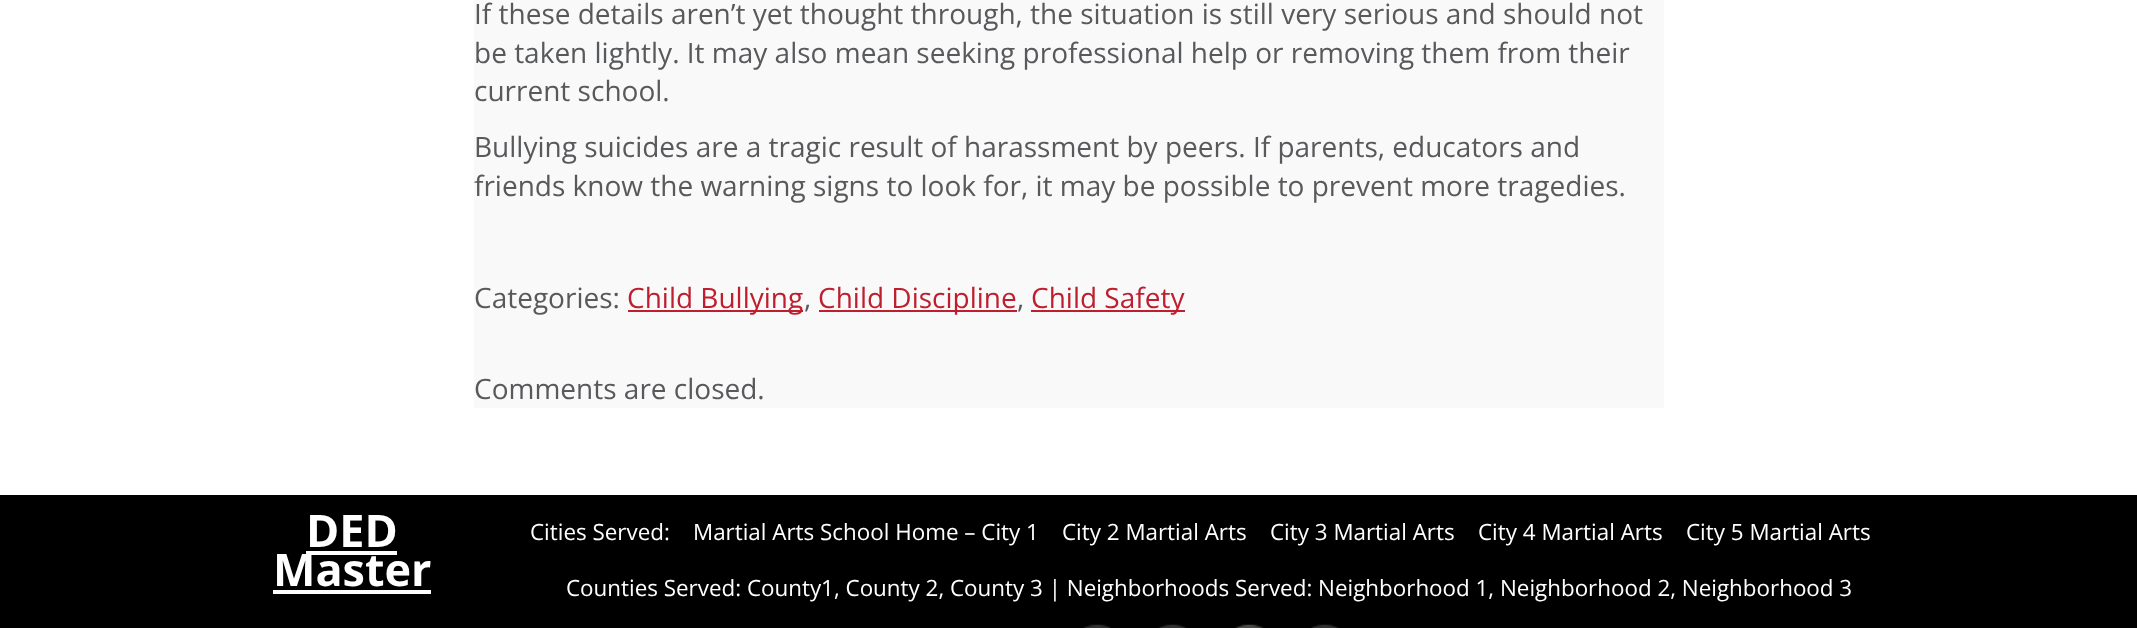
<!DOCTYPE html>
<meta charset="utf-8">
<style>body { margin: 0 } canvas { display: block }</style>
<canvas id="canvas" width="2137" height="628"></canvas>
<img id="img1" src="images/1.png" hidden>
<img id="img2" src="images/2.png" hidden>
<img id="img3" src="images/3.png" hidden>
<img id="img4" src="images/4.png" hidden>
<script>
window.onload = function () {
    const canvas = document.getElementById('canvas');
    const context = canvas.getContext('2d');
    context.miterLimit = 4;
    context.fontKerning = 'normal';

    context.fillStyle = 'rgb(255, 255, 255)';
    context.fillRect(0, 0, 2137, 628);
    context.fillStyle = 'rgb(249, 249, 250)';
    context.fillRect(474, 0, 1190, 408);
    context.fillStyle = 'rgb(190, 30, 45)';
    context.fillRect(628, 310, 175, 2);
    context.fillRect(819, 310, 198, 2);
    context.fillRect(1031, 310, 154, 2);
    context.fillStyle = 'rgb(0, 0, 0)';
    context.fillRect(0, 495, 2137, 133);
    context.fillStyle = 'rgb(255, 255, 255)';
    context.fillRect(306, 551, 91, 4);
    context.fillRect(273, 590, 158, 4);
    context.drawImage(document.getElementById('img1'), 1083, 624, 28, 4);
    context.drawImage(document.getElementById('img2'), 1158, 624, 29, 4);
    context.drawImage(document.getElementById('img3'), 1235, 624, 29, 4);
    context.drawImage(document.getElementById('img4'), 1311, 624, 28, 4);
    context.font = '28px Open Sans';
    context.fillStyle = 'rgb(88, 89, 91)';
    context.fillText('If these details aren’t yet thought through, the situation is still very serious and should not', 474, 24);
    context.fillText('be taken lightly. It may also mean seeking professional help or removing them from their', 474, 63);
    context.fillText('current school.', 474, 101);
    context.fillText('Bullying suicides are a tragic result of harassment by peers. If parents, educators and', 474, 157);
    context.fillText('friends know the warning signs to look for, it may be possible to prevent more tragedies.', 474, 196);
    context.fillText('Categories:', 474, 308);
    context.fillStyle = 'rgb(190, 30, 45)';
    context.fillText('Child Bullying', 627, 308);
    context.fillStyle = 'rgb(88, 89, 91)';
    context.fillText(',', 804, 308);
    context.fillStyle = 'rgb(190, 30, 45)';
    context.fillText('Child Discipline', 818, 308);
    context.fillStyle = 'rgb(88, 89, 91)';
    context.fillText(',', 1017, 308);
    context.fillStyle = 'rgb(190, 30, 45)';
    context.fillText('Child Safety', 1031, 308);
    context.fillStyle = 'rgb(88, 89, 91)';
    context.fillText('Comments are closed.', 474, 399);
    context.font = 'bold 45px Open Sans';
    context.fillStyle = 'rgb(255, 255, 255)';
    context.fillText('DED', 306, 547);
    context.fillText('Master', 273, 586);
    context.font = '22.4px Open Sans';
    context.fillText('Cities Served:', 530, 540);
    context.fillText('Martial Arts School Home – City 1', 693, 540);
    context.fillText('City 2 Martial Arts', 1062, 540);
    context.fillText('City 3 Martial Arts', 1270, 540);
    context.fillText('City 4 Martial Arts', 1478, 540);
    context.fillText('City 5 Martial Arts', 1686, 540);
    context.fillText('Counties Served: County1, County 2, County 3 | Neighborhoods Served: Neighborhood 1, Neighborhood 2, Neighborhood 3', 566, 596);
};
</script>
